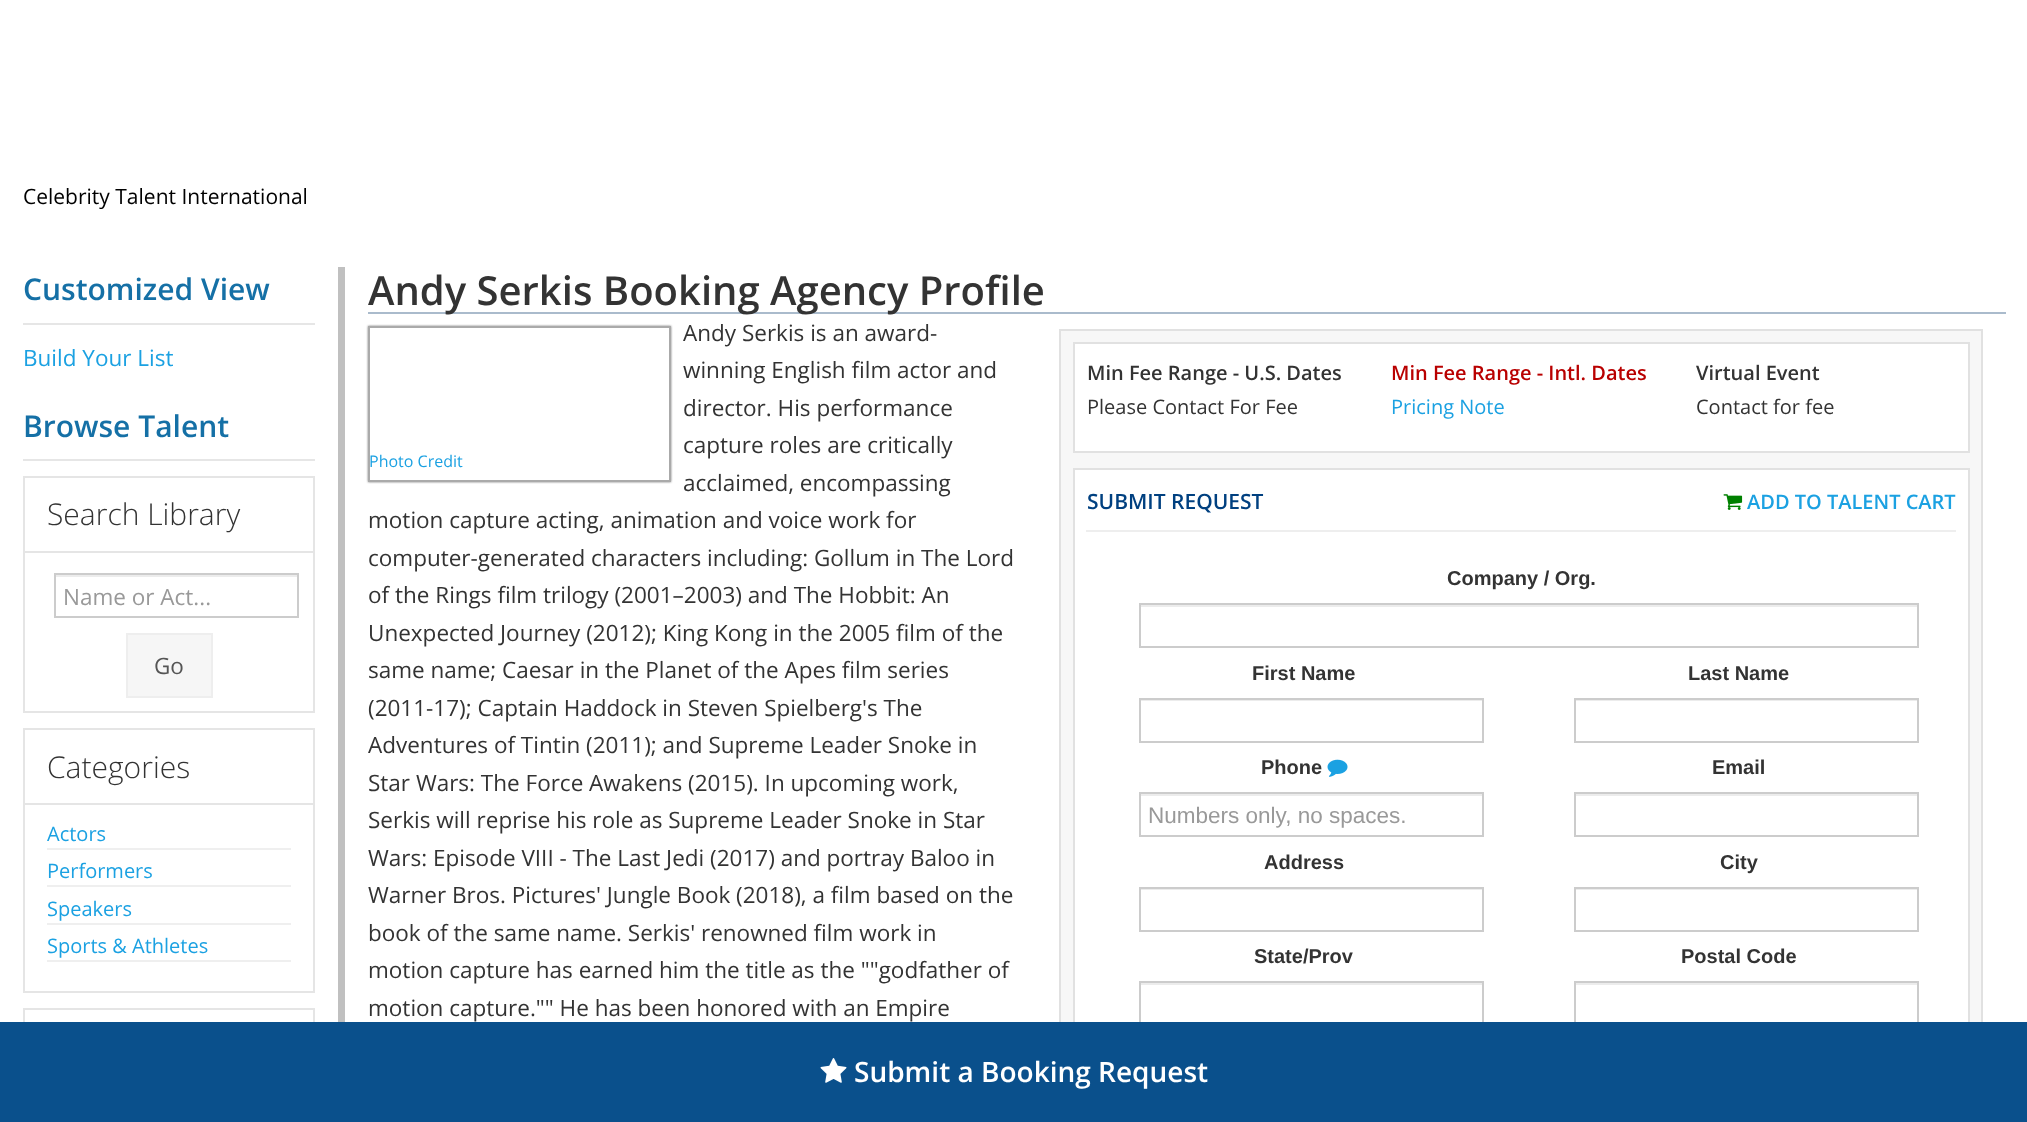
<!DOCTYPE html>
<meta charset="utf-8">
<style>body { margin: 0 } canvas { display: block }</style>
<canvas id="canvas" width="2027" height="1122"></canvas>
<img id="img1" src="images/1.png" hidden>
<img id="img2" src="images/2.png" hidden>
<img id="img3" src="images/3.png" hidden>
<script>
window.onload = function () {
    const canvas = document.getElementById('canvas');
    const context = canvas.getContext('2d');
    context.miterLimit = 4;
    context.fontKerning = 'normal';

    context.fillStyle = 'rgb(255, 255, 255)';
    context.fillRect(0, 0, 2027, 1122);
    context.fillStyle = 'rgb(230, 230, 230)';
    context.fillRect(23, 323, 292, 2);
    context.fillRect(23, 459, 292, 2);
    context.strokeStyle = 'rgb(229, 229, 229)';
    context.lineWidth = 2;
    context.strokeRect(24, 477, 290, 235);
    context.fillStyle = 'rgb(229, 229, 229)';
    context.fillRect(24, 551, 290, 2);
    context.fillStyle = 'rgb(236, 236, 236)';
    context.fillRect(56, 575, 241, 2);
    context.strokeStyle = 'rgb(204, 204, 204)';
    context.strokeRect(55, 574, 243, 43);
    context.fillStyle = 'rgb(246, 246, 246)';
    context.beginPath();
    context.rect(127, 634, 85, 63);
    context.fill();
    context.strokeStyle = 'rgb(238, 238, 238)';
    context.stroke();
    context.strokeStyle = 'rgb(229, 229, 229)';
    context.strokeRect(24, 729, 290, 263);
    context.fillStyle = 'rgb(229, 229, 229)';
    context.fillRect(24, 803, 290, 2);
    context.fillStyle = 'rgb(239, 239, 239)';
    context.fillRect(47, 848, 244, 2);
    context.fillRect(47, 885, 244, 2);
    context.fillRect(47, 923, 244, 2);
    context.fillRect(47, 960, 244, 2);
    context.strokeRect(24, 1009, 290, 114);
    context.fillStyle = 'rgb(192, 192, 192)';
    context.fillRect(338, 267, 7, 755);
    context.fillStyle = 'rgb(170, 187, 204)';
    context.fillRect(368, 312, 1638, 2);
    context.save();
    context.beginPath();
    context.moveTo(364, 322);
    context.lineTo(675, 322);
    context.lineTo(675, 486);
    context.lineTo(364, 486);
    context.closePath();
    context.moveTo(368, 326);
    context.lineTo(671, 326);
    context.lineTo(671, 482);
    context.lineTo(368, 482);
    context.closePath();
    context.clip('evenodd');
    context.fillStyle = 'rgb(119, 119, 119)';
    context.filter = 'blur(1px)';
    context.beginPath();
    context.rect(368, 326, 303, 156);
    context.fill();
    context.filter = 'none';
    context.restore();
    context.strokeStyle = 'rgb(170, 170, 170)';
    context.strokeRect(369, 327, 301, 154);
    context.fillStyle = 'rgb(247, 247, 247)';
    context.fillRect(1061, 331, 920, 691);
    context.strokeStyle = 'rgb(225, 225, 225)';
    context.strokeRect(1060, 330, 922, 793);
    context.fillStyle = 'rgb(255, 255, 255)';
    context.beginPath();
    context.rect(1074, 343, 895, 109);
    context.fill();
    context.stroke();
    context.fillRect(1075, 470, 893, 552);
    context.strokeRect(1074, 469, 895, 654);
    context.fillStyle = 'rgb(238, 238, 238)';
    context.fillRect(1086, 530, 870, 2);
    context.drawImage(document.getElementById('img1'), 1723, 494, 20, 16);
    context.fillStyle = 'rgb(236, 236, 236)';
    context.fillRect(1140, 605, 777, 2);
    context.strokeStyle = 'rgb(204, 204, 204)';
    context.strokeRect(1140, 604, 778, 43);
    context.fillRect(1140, 700, 342, 1);
    context.strokeRect(1140, 699, 343, 43);
    context.fillRect(1575, 700, 342, 1);
    context.strokeRect(1575, 699, 343, 43);
    context.drawImage(document.getElementById('img2'), 1327, 759, 21, 18);
    context.fillRect(1140, 794, 342, 2);
    context.strokeRect(1140, 793, 343, 43);
    context.fillRect(1575, 794, 342, 2);
    context.strokeRect(1575, 793, 343, 43);
    context.fillRect(1140, 889, 342, 1);
    context.strokeRect(1140, 888, 343, 43);
    context.fillRect(1575, 889, 342, 1);
    context.strokeRect(1575, 888, 343, 43);
    context.fillRect(1140, 983, 342, 2);
    context.strokeRect(1140, 982, 343, 43);
    context.fillRect(1575, 983, 342, 2);
    context.strokeRect(1575, 982, 343, 43);
    context.fillStyle = 'rgb(10, 80, 140)';
    context.fillRect(0, 1022, 2027, 100);
    context.drawImage(document.getElementById('img3'), 820, 1058, 27, 25);
    context.font = '21px Open Sans';
    context.fillStyle = 'rgb(0, 0, 0)';
    context.fillText('Celebrity Talent International', 23, 204);
    context.font = '600 30px Open Sans';
    context.fillStyle = 'rgb(21, 112, 166)';
    context.fillText('Customized View', 23, 300);
    context.font = '22.5px Open Sans';
    context.fillStyle = 'rgb(27, 161, 226)';
    context.fillText('Build Your List', 23, 366);
    context.font = '600 30px Open Sans';
    context.fillStyle = 'rgb(21, 112, 166)';
    context.fillText('Browse Talent', 23, 437);
    context.font = '300 30px Open Sans';
    context.fillStyle = 'rgb(51, 51, 51)';
    context.fillText('Search Library', 47, 525);
    context.font = '22.5px Open Sans';
    context.fillStyle = 'rgb(153, 153, 153)';
    context.fillText('Name or Act...', 63, 605);
    context.fillStyle = 'rgb(85, 85, 85)';
    context.fillText('Go', 154, 674);
    context.font = '300 30px Open Sans';
    context.fillStyle = 'rgb(51, 51, 51)';
    context.fillText('Categories', 47, 778);
    context.font = '20px Open Sans';
    context.fillStyle = 'rgb(27, 161, 226)';
    context.fillText('Actors', 47, 841);
    context.fillText('Performers', 47, 878);
    context.fillText('Speakers', 47, 916);
    context.fillText('Sports & Athletes', 47, 953);
    context.font = '600 40px Open Sans';
    context.fillStyle = 'rgb(51, 51, 51)';
    context.fillText('Andy Serkis Booking Agency Profile', 368, 305);
    context.font = '22.5px Open Sans';
    context.fillText('Andy Serkis is an award-', 683, 341);
    context.fillText('winning English film actor and', 683, 378);
    context.fillText('director. His performance', 683, 416);
    context.fillText('capture roles are critically', 683, 453);
    context.font = '16px Open Sans';
    context.fillStyle = 'rgb(27, 161, 226)';
    context.fillText('Photo Credit', 369, 467);
    context.font = '22.5px Open Sans';
    context.fillStyle = 'rgb(51, 51, 51)';
    context.fillText('acclaimed, encompassing', 683, 491);
    context.fillText('motion capture acting, animation and voice work for', 368, 528);
    context.fillText('computer-generated characters including: Gollum in The Lord', 368, 566);
    context.fillText('of the Rings film trilogy (2001–2003) and The Hobbit: An', 368, 603);
    context.fillText('Unexpected Journey (2012); King Kong in the 2005 film of the', 368, 641);
    context.fillText('same name; Caesar in the Planet of the Apes film series', 368, 678);
    context.fillText('(2011-17); Captain Haddock in Steven Spielberg\'s The', 368, 716);
    context.fillText('Adventures of Tintin (2011); and Supreme Leader Snoke in', 368, 753);
    context.fillText('Star Wars: The Force Awakens (2015). In upcoming work,', 368, 791);
    context.fillText('Serkis will reprise his role as Supreme Leader Snoke in Star', 368, 828);
    context.fillText('Wars: Episode VIII - The Last Jedi (2017) and portray Baloo in', 368, 866);
    context.fillText('Warner Bros. Pictures\' Jungle Book (2018), a film based on the', 368, 903);
    context.fillText('book of the same name. Serkis\' renowned film work in', 368, 941);
    context.fillText('motion capture has earned him the title as the ""godfather of', 368, 978);
    context.fillText('motion capture."" He has been honored with an Empire', 368, 1016);
    context.font = '600 20px Open Sans';
    context.fillText('Min Fee Range - U.S. Dates', 1087, 380);
    context.font = '20px Open Sans';
    context.fillText('Please Contact For Fee', 1087, 414);
    context.font = '600 20px Open Sans';
    context.fillStyle = 'rgb(185, 0, 0)';
    context.fillText('Min Fee Range - Intl. Dates', 1391, 380);
    context.font = '20px Open Sans';
    context.fillStyle = 'rgb(27, 161, 226)';
    context.fillText('Pricing Note', 1391, 414);
    context.font = '600 20px Open Sans';
    context.fillStyle = 'rgb(51, 51, 51)';
    context.fillText('Virtual Event', 1696, 380);
    context.font = '20px Open Sans';
    context.fillText('Contact for fee', 1696, 414);
    context.font = '600 21px Open Sans';
    context.fillStyle = 'rgb(0, 64, 128)';
    context.fillText('SUBMIT REQUEST', 1087, 509);
    context.font = '600 20px Open Sans';
    context.fillStyle = 'rgb(27, 161, 226)';
    context.fillText('ADD TO TALENT CART', 1747, 509);
    context.font = 'bold 20px Liberation Sans';
    context.fillStyle = 'rgb(51, 51, 51)';
    context.fillText('Company / Org.', 1447, 585);
    context.fillText('First Name', 1252, 680);
    context.fillText('Last Name', 1688, 680);
    context.fillText('Phone', 1261, 774);
    context.font = '22.5px Liberation Sans';
    context.fillStyle = 'rgb(153, 153, 153)';
    context.fillText('Numbers only, no spaces.', 1148, 823);
    context.font = 'bold 20px Liberation Sans';
    context.fillStyle = 'rgb(51, 51, 51)';
    context.fillText('Email', 1712, 774);
    context.fillText('Address', 1264, 869);
    context.fillText('City', 1720, 869);
    context.fillText('State/Prov', 1254, 963);
    context.fillText('Postal Code', 1681, 963);
    context.font = '600 28px Open Sans';
    context.fillStyle = 'rgb(255, 255, 255)';
    context.fillText('Submit a Booking Request', 854, 1082);
};
</script>
